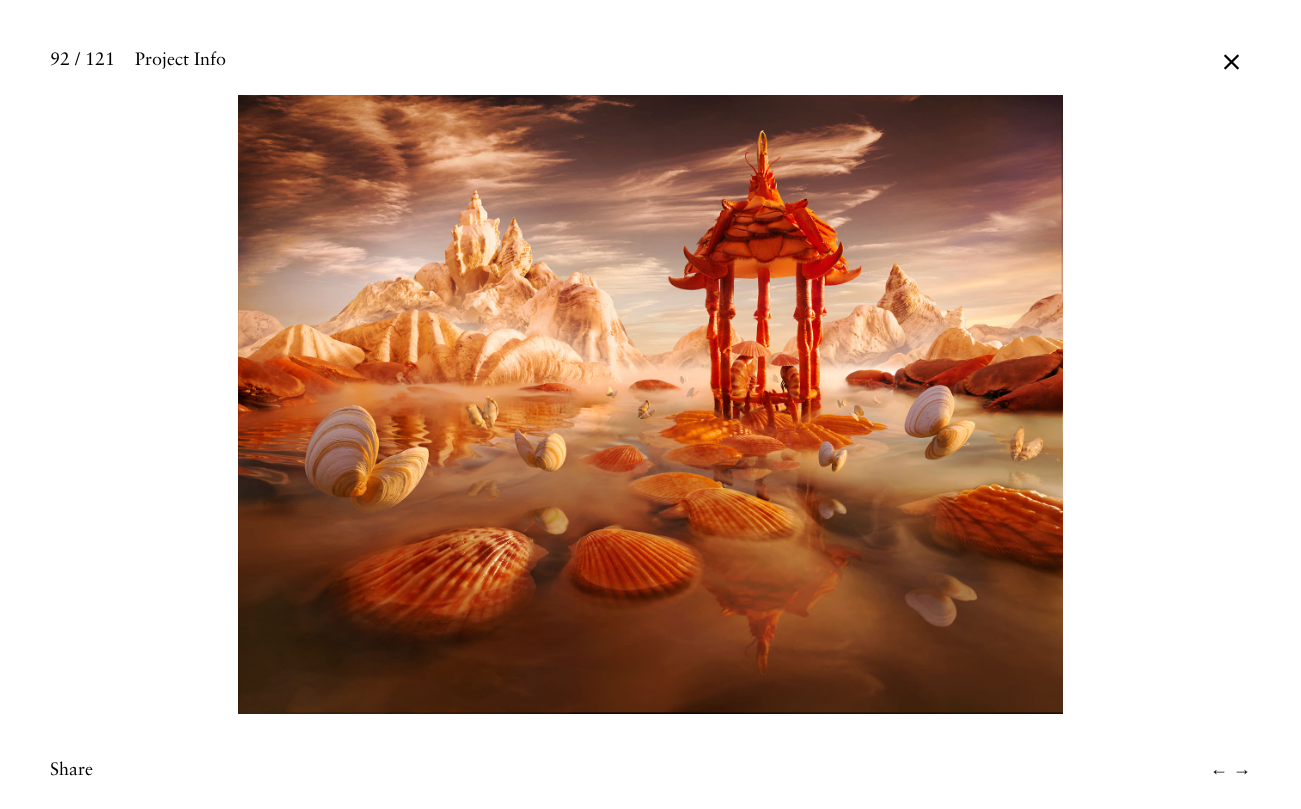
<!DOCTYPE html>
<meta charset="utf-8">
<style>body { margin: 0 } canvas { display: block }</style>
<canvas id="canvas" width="1301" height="809"></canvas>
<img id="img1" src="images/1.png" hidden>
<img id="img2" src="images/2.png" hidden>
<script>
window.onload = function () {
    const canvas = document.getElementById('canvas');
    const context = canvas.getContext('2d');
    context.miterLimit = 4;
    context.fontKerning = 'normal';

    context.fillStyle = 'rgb(255, 255, 255)';
    context.fillRect(0, 0, 1301, 809);
    context.drawImage(document.getElementById('img1'), 1224, 54, 15, 16);
    context.drawImage(document.getElementById('img2'), 238, 95, 825, 619);
    context.font = '18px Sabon';
    context.fillStyle = 'rgb(0, 0, 0)';
    context.fillText('92 / 121', 50, 65);
    context.fillText('Project Info', 135, 65);
    context.fillText('Share', 50, 775);
    context.font = 'bold 18px Liberation Serif';
    context.fillText('←', 1210, 775);
    context.fillText('→', 1233, 775);
};
</script>
